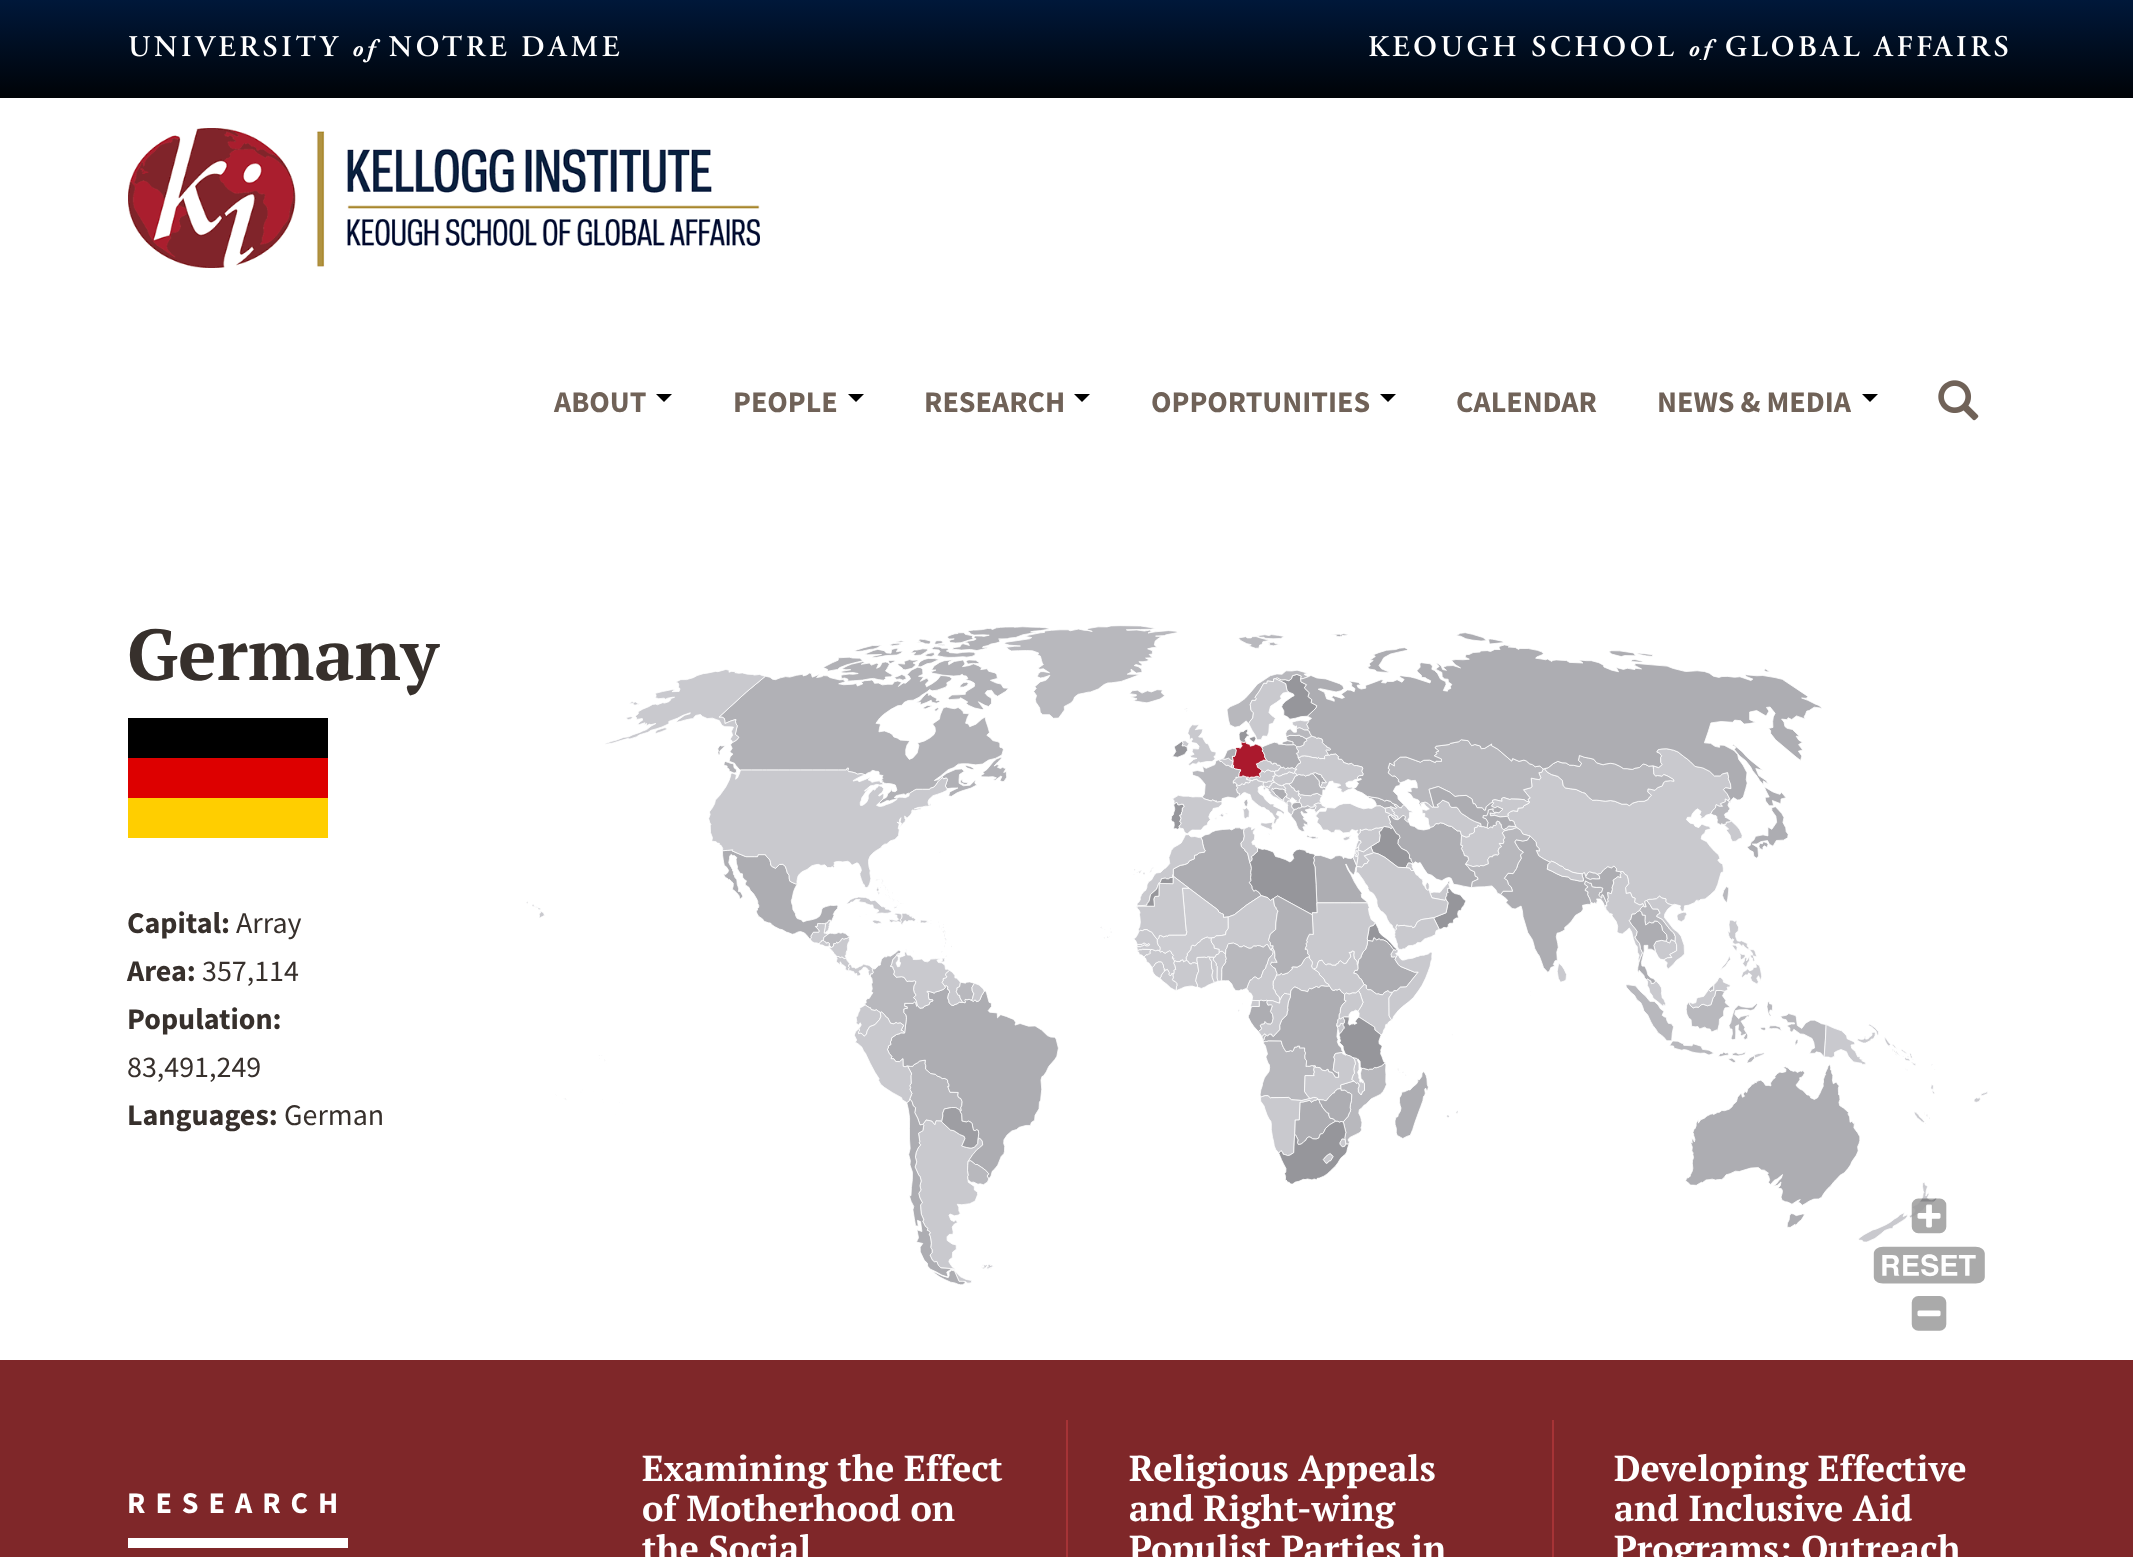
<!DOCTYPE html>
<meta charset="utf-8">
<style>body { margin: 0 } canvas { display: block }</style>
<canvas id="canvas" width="2133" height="1557"></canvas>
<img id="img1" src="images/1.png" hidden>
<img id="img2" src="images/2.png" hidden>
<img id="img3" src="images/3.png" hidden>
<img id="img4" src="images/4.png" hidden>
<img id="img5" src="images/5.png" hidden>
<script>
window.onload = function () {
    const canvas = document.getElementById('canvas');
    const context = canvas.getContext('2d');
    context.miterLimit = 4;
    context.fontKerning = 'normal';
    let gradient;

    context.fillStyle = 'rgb(255, 255, 255)';
    context.fillRect(0, 0, 2133, 1557);
    gradient = context.createLinearGradient(1067, 0, 1067, 98);
    gradient.addColorStop(0, 'rgb(0, 24, 58)');
    gradient.addColorStop(1, 'rgb(0, 3, 7)');
    context.fillStyle = gradient;
    context.fillRect(0, 0, 2133, 98);
    context.drawImage(document.getElementById('img1'), 129, 35, 491, 28);
    context.drawImage(document.getElementById('img2'), 1369, 35, 639, 25);
    context.drawImage(document.getElementById('img3'), 128, 128, 632, 140);
    context.fillStyle = 'rgb(0, 0, 0)';
    context.beginPath();
    context.moveTo(656, 394);
    context.lineTo(672, 394);
    context.lineTo(664, 402);
    context.closePath();
    context.fill();
    context.beginPath();
    context.moveTo(848, 394);
    context.lineTo(864, 394);
    context.lineTo(856, 402);
    context.closePath();
    context.fill();
    context.beginPath();
    context.moveTo(1074, 394);
    context.lineTo(1090, 394);
    context.lineTo(1082, 402);
    context.closePath();
    context.fill();
    context.beginPath();
    context.moveTo(1380, 394);
    context.lineTo(1396, 394);
    context.lineTo(1388, 402);
    context.closePath();
    context.fill();
    context.beginPath();
    context.moveTo(1862, 394);
    context.lineTo(1878, 394);
    context.lineTo(1870, 402);
    context.closePath();
    context.fill();
    context.drawImage(document.getElementById('img4'), 1938, 380, 41, 41);
    context.fillRect(128, 718, 200, 40);
    context.fillStyle = 'rgb(221, 0, 0)';
    context.fillRect(128, 758, 200, 40);
    context.fillStyle = 'rgb(255, 206, 0)';
    context.fillRect(128, 798, 200, 40);
    context.drawImage(document.getElementById('img5'), 526, 625, 1462, 706);
    context.fillStyle = 'rgb(127, 39, 41)';
    context.fillRect(0, 1360, 2133, 197);
    context.fillStyle = 'rgb(255, 255, 255)';
    context.fillRect(128, 1538, 220, 10);
    context.fillStyle = 'rgb(166, 51, 54)';
    context.fillRect(1066, 1420, 2, 137);
    context.fillRect(1552, 1420, 2, 137);
    context.font = 'bold 30px Source Sans Pro';
    context.fillStyle = 'rgb(112, 98, 88)';
    context.fillText('ABOUT', 554, 412);
    context.fillText('PEOPLE', 733, 412);
    context.fillText('RESEARCH', 924, 412);
    context.fillText('OPPORTUNITIES', 1151, 412);
    context.fillText('CALENDAR', 1456, 412);
    context.fillText('NEWS & MEDIA', 1657, 412);
    context.font = 'bold 72px PT Serif';
    context.fillStyle = 'rgb(55, 48, 44)';
    context.fillText('Germany', 127, 680);
    context.font = 'bold 30px Source Sans Pro';
    context.fillText('Capital:', 127, 933);
    context.font = '30px Source Sans Pro';
    context.fillText('Array', 236, 933);
    context.font = 'bold 30px Source Sans Pro';
    context.fillText('Area:', 127, 981);
    context.font = '30px Source Sans Pro';
    context.fillText('357,114', 202, 981);
    context.font = 'bold 30px Source Sans Pro';
    context.fillText('Population:', 127, 1029);
    context.font = '30px Source Sans Pro';
    context.fillText('83,491,249', 127, 1077);
    context.font = 'bold 30px Source Sans Pro';
    context.fillText('Languages:', 127, 1125);
    context.font = '30px Source Sans Pro';
    context.fillText('German', 284, 1125);
    context.letterSpacing = '10px';
    context.font = 'bold 30px Source Sans Pro';
    context.fillStyle = 'rgb(255, 255, 255)';
    context.fillText('RESEARCH', 127, 1513);
    context.letterSpacing = '0px';
    context.font = 'bold 36px PT Serif';
    context.fillText('Examining the Effect', 642, 1481);
    context.fillText('of Motherhood on', 642, 1521);
    context.fillText('the Social', 642, 1561);
    context.fillText('Religious Appeals', 1129, 1481);
    context.fillText('and Right-wing', 1129, 1521);
    context.fillText('Populist Parties in', 1129, 1561);
    context.fillText('Developing Effective', 1614, 1481);
    context.fillText('and Inclusive Aid', 1614, 1521);
    context.fillText('Programs: Outreach', 1614, 1561);
};
</script>
